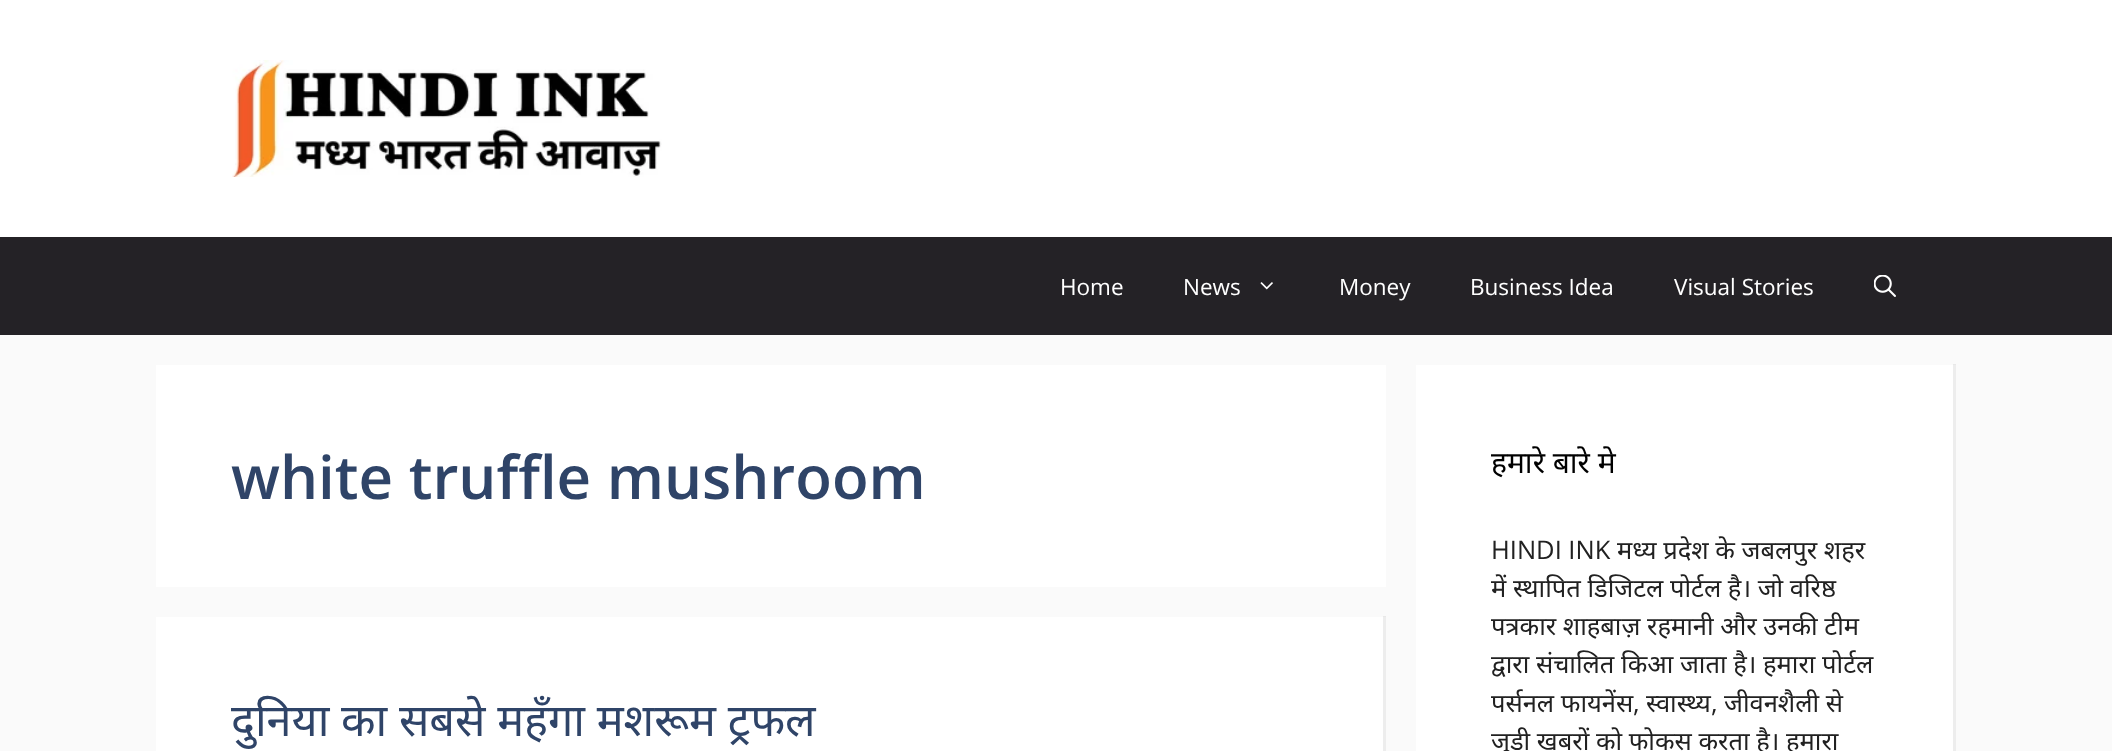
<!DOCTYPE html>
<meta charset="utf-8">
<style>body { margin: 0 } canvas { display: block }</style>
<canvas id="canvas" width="2112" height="751"></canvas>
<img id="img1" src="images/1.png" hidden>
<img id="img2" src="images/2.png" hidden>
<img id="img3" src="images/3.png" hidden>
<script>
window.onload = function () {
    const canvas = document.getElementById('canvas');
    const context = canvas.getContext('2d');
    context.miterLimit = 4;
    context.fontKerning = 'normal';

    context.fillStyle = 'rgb(250, 250, 250)';
    context.fillRect(0, 0, 2112, 751);
    context.fillStyle = 'rgb(255, 255, 255)';
    context.fillRect(0, 0, 2112, 237);
    context.drawImage(document.getElementById('img1'), 232, 60, 430, 117);
    context.fillStyle = 'rgb(36, 34, 38)';
    context.fillRect(0, 237, 2112, 98);
    context.drawImage(document.getElementById('img2'), 1260, 282, 13, 8);
    context.drawImage(document.getElementById('img3'), 1874, 275, 22, 22);
    context.fillStyle = 'rgb(255, 255, 255)';
    context.fillRect(156, 365, 1230, 222);
    context.fillRect(156, 617, 1230, 134);
    context.fillStyle = 'rgba(0, 0, 0, 0.07)';
    context.beginPath();
    context.moveTo(1386, 616);
    context.lineTo(1386, 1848);
    context.lineTo(1383, 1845);
    context.lineTo(1383, 616);
    context.closePath();
    context.fill();
    context.fillStyle = 'rgb(255, 255, 255)';
    context.fillRect(1416, 365, 540, 386);
    context.fillStyle = 'rgba(0, 0, 0, 0.07)';
    context.beginPath();
    context.moveTo(1956, 364);
    context.lineTo(1956, 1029);
    context.lineTo(1953, 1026);
    context.lineTo(1953, 364);
    context.closePath();
    context.fill();
    context.font = '22.5px Open Sans';
    context.fillStyle = 'rgb(255, 255, 255)';
    context.fillText('Home', 1060, 295);
    context.fillText('News', 1183, 295);
    context.fillText('Money', 1339, 295);
    context.fillText('Business Idea', 1470, 295);
    context.fillText('Visual Stories', 1674, 295);
    context.font = '600 60px Open Sans';
    context.fillStyle = 'rgb(47, 68, 104)';
    context.fillText('white truffle mushroom', 231, 499);
    context.font = '45px Noto Sans';
    context.fillText('दुनिया का सबसे महँगा मशरूम ट्रफल', 231, 736);
    context.font = '30px Noto Sans';
    context.fillStyle = 'rgb(0, 0, 0)';
    context.fillText('हमारे बारे मे', 1491, 473);
    context.font = '25.5px Open Sans';
    context.fillStyle = 'rgb(33, 33, 33)';
    context.fillText('HINDI INK', 1491, 559);
    context.font = '25.5px Noto Sans';
    context.fillText('मध्य प्रदेश के जबलपुर शहर', 1617, 559);
    context.fillText('में स्थापित डिजिटल पोर्टल है। जो वरिष्ठ', 1491, 597);
    context.fillText('पत्रकार शाहबाज़ रहमानी और उनकी टीम', 1491, 635);
    context.fillText('द्वारा संचालित किआ जाता है। हमारा पोर्टल', 1491, 673);
    context.fillText('पर्सनल फायनेंस', 1491, 712);
    context.font = '25.5px Open Sans';
    context.fillText(',', 1633, 712);
    context.font = '25.5px Noto Sans';
    context.fillText('स्वास्थ्य', 1646, 712);
    context.font = '25.5px Open Sans';
    context.fillText(',', 1711, 712);
    context.font = '25.5px Noto Sans';
    context.fillText('जीवनशैली से', 1724, 712);
    context.fillText('जुड़ी खबरों को फोकस करता है। हमारा', 1491, 750);
};
</script>
